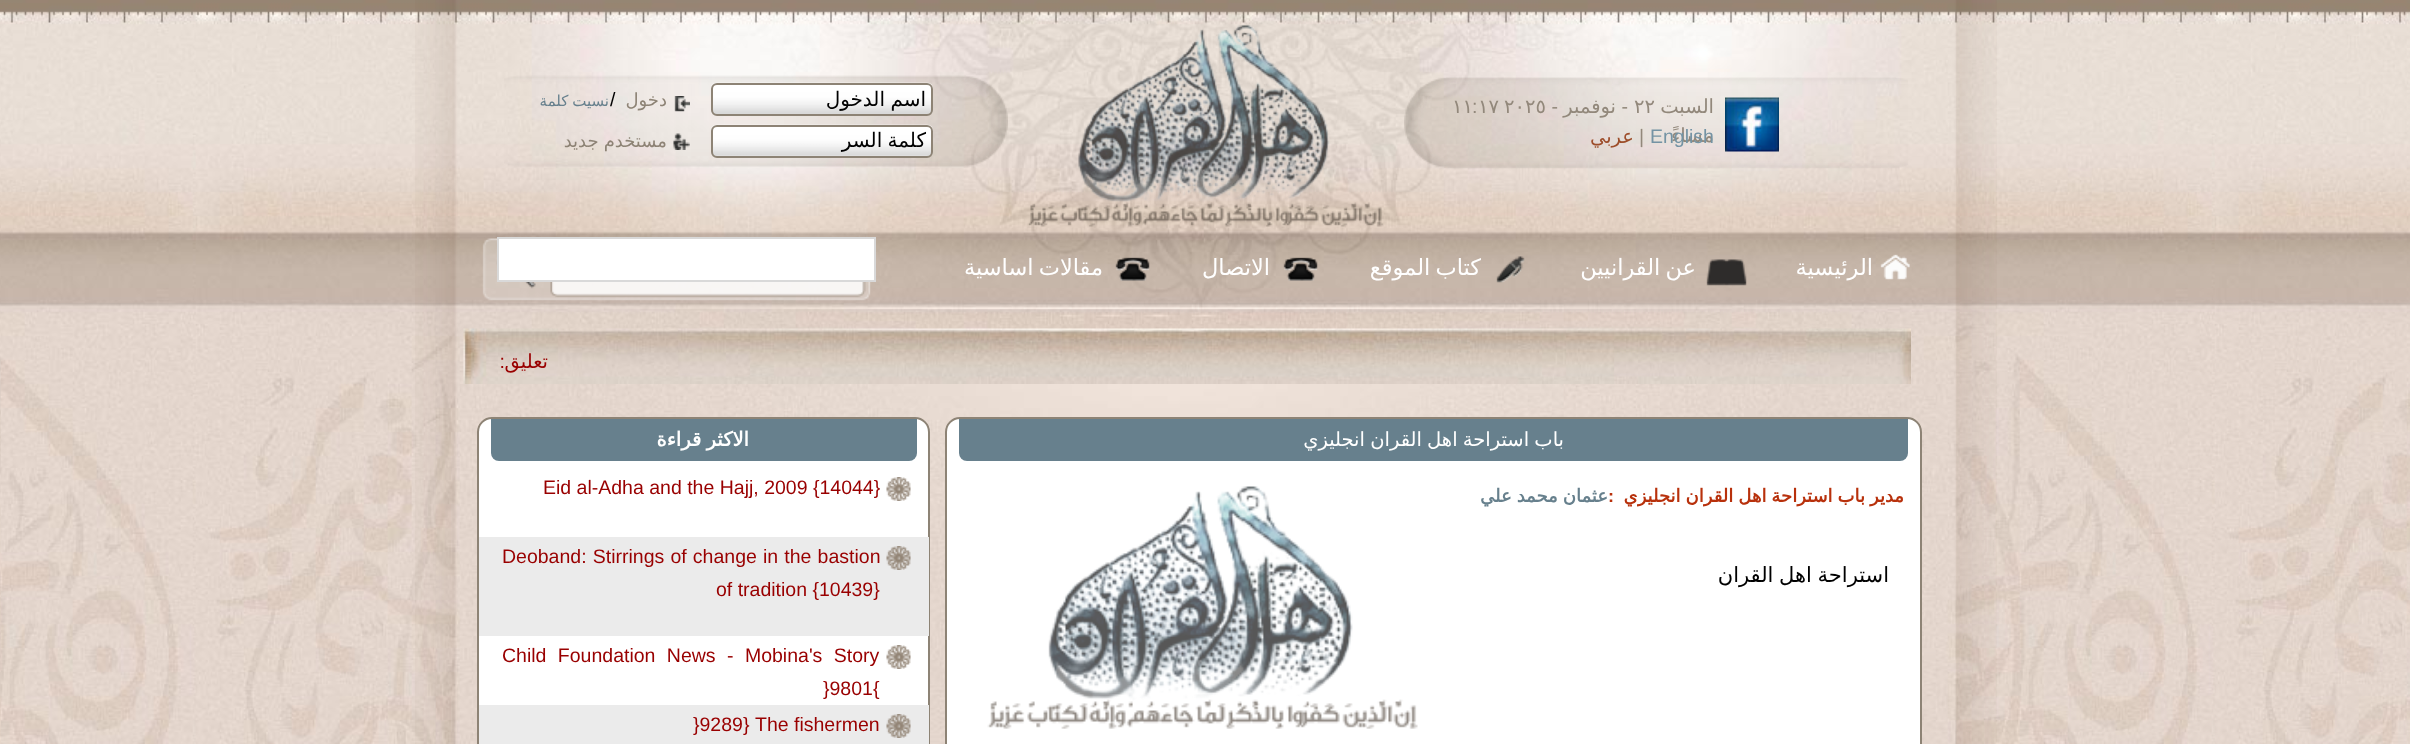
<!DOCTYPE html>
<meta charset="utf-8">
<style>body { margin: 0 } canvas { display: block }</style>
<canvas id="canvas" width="2410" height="744"></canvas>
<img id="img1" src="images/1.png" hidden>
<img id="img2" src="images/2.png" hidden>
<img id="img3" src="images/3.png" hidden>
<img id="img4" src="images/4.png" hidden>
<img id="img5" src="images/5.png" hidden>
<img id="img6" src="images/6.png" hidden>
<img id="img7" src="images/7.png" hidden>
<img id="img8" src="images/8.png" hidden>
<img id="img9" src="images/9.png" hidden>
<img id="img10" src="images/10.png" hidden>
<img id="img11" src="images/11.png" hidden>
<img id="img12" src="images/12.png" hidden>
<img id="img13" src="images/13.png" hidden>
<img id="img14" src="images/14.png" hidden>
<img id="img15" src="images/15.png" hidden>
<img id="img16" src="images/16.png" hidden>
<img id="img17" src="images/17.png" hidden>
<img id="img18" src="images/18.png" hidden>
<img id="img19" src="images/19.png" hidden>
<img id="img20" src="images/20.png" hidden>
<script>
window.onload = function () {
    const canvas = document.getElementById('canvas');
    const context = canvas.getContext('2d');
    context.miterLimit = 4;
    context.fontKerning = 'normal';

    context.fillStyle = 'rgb(255, 255, 255)';
    context.fillRect(0, 0, 2410, 744);
    context.drawImage(document.getElementById('img1'), 0, 0, 2410, 744);
    context.drawImage(document.getElementById('img2'), 415, 0, 1582, 744);
    context.drawImage(document.getElementById('img3'), 1404, 77, 504, 92);
    context.drawImage(document.getElementById('img4'), 1725, 97, 54, 55);
    context.drawImage(document.getElementById('img5'), 1027, 25, 357, 202);
    context.drawImage(document.getElementById('img6'), 504, 75, 504, 92);
    context.drawImage(document.getElementById('img7'), 711, 82, 222, 32);
    context.beginPath();
    context.roundRect(712, 84, 220, 31, 5);
    context.strokeStyle = 'rgb(141, 131, 117)';
    context.lineWidth = 2;
    context.stroke();
    context.drawImage(document.getElementById('img8'), 674, 96, 16, 16);
    context.drawImage(document.getElementById('img9'), 711, 124, 222, 33);
    context.beginPath();
    context.roundRect(712, 126, 220, 31, 5);
    context.stroke();
    context.drawImage(document.getElementById('img10'), 673, 133, 17, 17);
    context.drawImage(document.getElementById('img11'), 1880, 254, 30, 26);
    context.drawImage(document.getElementById('img12'), 1706, 259, 41, 27);
    context.drawImage(document.getElementById('img13'), 1496, 256, 29, 27);
    context.drawImage(document.getElementById('img14'), 1283, 257, 35, 24);
    context.drawImage(document.getElementById('img15'), 1115, 257, 35, 24);
    context.drawImage(document.getElementById('img16'), 482, 238, 389, 63);
    context.beginPath();
    context.rect(498, 238, 377, 43);
    context.fill();
    context.strokeStyle = 'rgb(217, 217, 217)';
    context.stroke();
    context.drawImage(document.getElementById('img17'), 463, 328, 1448, 56);
    context.beginPath();
    context.roundRect(946, 418, 975, 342, 14);
    context.fill();
    context.strokeStyle = 'rgb(141, 131, 117)';
    context.stroke();
    context.fillStyle = 'rgb(103, 128, 141)';
    context.beginPath();
    context.roundRect(959, 419, 949, 42, [0, 0, 8, 8]);
    context.fill();
    context.drawImage(document.getElementById('img18'), 987, 486, 431, 243);
    context.fillStyle = 'rgb(255, 255, 255)';
    context.beginPath();
    context.roundRect(478, 418, 451, 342, 14);
    context.fill();
    context.stroke();
    context.fillStyle = 'rgb(103, 128, 141)';
    context.beginPath();
    context.roundRect(491, 419, 426, 42, [0, 0, 8, 8]);
    context.fill();
    context.drawImage(document.getElementById('img19'), 886, 477, 25, 24);
    context.fillStyle = 'rgb(235, 235, 235)';
    context.fillRect(479, 537, 450, 99);
    context.drawImage(document.getElementById('img20'), 886, 546, 25, 24);
    context.drawImage(document.getElementById('img19'), 886, 645, 25, 24);
    context.fillRect(479, 705, 450, 39);
    context.drawImage(document.getElementById('img20'), 886, 714, 25, 24);
    context.direction = 'rtl';
    context.font = '19.5px DejaVu Sans';
    context.fillStyle = 'rgb(146, 136, 123)';
    context.fillText('السبت', 1714, 113);
    context.direction = 'ltr';
    context.fillText('٢٢', 1634, 113);
    context.direction = 'rtl';
    context.font = '19.5px Liberation Sans';
    context.fillText('-', 1628, 113);
    context.font = '19.5px DejaVu Sans';
    context.fillText('نوفمبر', 1616, 113);
    context.font = '19.5px Liberation Sans';
    context.fillText('-', 1558, 113);
    context.direction = 'ltr';
    context.font = '19.5px DejaVu Sans';
    context.fillText('٢٠٢٥', 1504, 113);
    context.fillText('١٧', 1478, 113);
    context.font = '19.5px Liberation Sans';
    context.fillText(':', 1472, 113);
    context.font = '19.5px DejaVu Sans';
    context.fillText('١١', 1452, 113);
    context.direction = 'rtl';
    context.fillText('مساءً', 1714, 142);
    context.direction = 'ltr';
    context.font = '19.5px Liberation Sans';
    context.fillStyle = 'rgb(116, 147, 164)';
    context.fillText('English', 1650, 143);
    context.fillStyle = 'rgb(146, 136, 123)';
    context.fillText('|', 1639, 143);
    context.direction = 'rtl';
    context.font = '19.5px DejaVu Sans';
    context.fillStyle = 'rgb(157, 77, 42)';
    context.fillText('عربي', 1634, 143);
    context.wordSpacing = '-1px';
    context.font = '20px DejaVu Sans';
    context.fillStyle = 'rgb(0, 0, 0)';
    context.fillText('اسم الدخول', 926, 106);
    context.wordSpacing = '0px';
    context.font = '18px DejaVu Sans';
    context.fillStyle = 'rgb(141, 131, 117)';
    context.fillText('دخول', 667, 106);
    context.direction = 'ltr';
    context.font = '19.5px Liberation Sans';
    context.fillStyle = 'rgb(0, 0, 0)';
    context.fillText('/', 610, 106);
    context.wordSpacing = '-1px';
    context.direction = 'rtl';
    context.font = '15px DejaVu Sans';
    context.fillStyle = 'rgb(103, 128, 141)';
    context.fillText('نسيت كلمة', 609, 106);
    context.font = '20px DejaVu Sans';
    context.fillStyle = 'rgb(0, 0, 0)';
    context.fillText('كلمة السر', 926, 147);
    context.wordSpacing = '-0.75px';
    context.font = '18px DejaVu Sans';
    context.fillStyle = 'rgb(141, 131, 117)';
    context.fillText('مستخدم جديد', 667, 147);
    context.wordSpacing = '0px';
    context.font = '22.5px DejaVu Sans';
    context.fillStyle = 'rgb(255, 255, 255)';
    context.fillText('الرئيسية', 1873, 275);
    context.wordSpacing = '-2px';
    context.fillText('عن القرانيين', 1696, 275);
    context.fillText('كتاب الموقع', 1481, 275);
    context.wordSpacing = '0px';
    context.fillText('الاتصال', 1270, 275);
    context.wordSpacing = '-2px';
    context.fillText('مقالات اساسية', 1103, 275);
    context.wordSpacing = '0px';
    context.font = '19.5px DejaVu Sans';
    context.fillStyle = 'rgb(153, 0, 0)';
    context.fillText('تعليق', 548, 368);
    context.font = '19.5px Liberation Sans';
    context.fillText(':', 505, 368);
    context.wordSpacing = '-1px';
    context.font = '19.5px DejaVu Sans';
    context.fillStyle = 'rgb(255, 255, 255)';
    context.fillText('باب استراحة اهل القران انجليزي', 1564, 446);
    context.wordSpacing = '-0.75px';
    context.font = 'bold 18px DejaVu Sans';
    context.fillStyle = 'rgb(184, 49, 12)';
    context.fillText('مدير باب استراحة اهل القران انجليزي', 1904, 502);
    context.wordSpacing = '0px';
    context.direction = 'ltr';
    context.font = 'bold 18px Liberation Sans';
    context.fillText(':', 1608, 502);
    context.wordSpacing = '-0.75px';
    context.direction = 'rtl';
    context.font = 'bold 18px DejaVu Sans';
    context.fillStyle = 'rgb(103, 128, 141)';
    context.fillText('عثمان محمد علي', 1608, 502);
    context.wordSpacing = '-1px';
    context.font = '21px DejaVu Sans';
    context.fillStyle = 'rgb(0, 0, 0)';
    context.fillText('استراحة اهل القران', 1889, 582);
    context.font = 'bold 19.5px DejaVu Sans';
    context.fillStyle = 'rgb(255, 255, 255)';
    context.fillText('الاكثر قراءة', 749, 446);
    context.wordSpacing = '0px';
    context.direction = 'ltr';
    context.font = '19.5px Liberation Sans';
    context.fillStyle = 'rgb(153, 0, 0)';
    context.fillText('Eid al-Adha and the Hajj, 2009 {14044}', 543, 494);
    context.wordSpacing = '0.75px';
    context.fillText('Deoband: Stirrings of change in the bastion', 502, 563);
    context.wordSpacing = '0px';
    context.fillText('of tradition {10439}', 716, 596);
    context.wordSpacing = '6px';
    context.fillText('Child Foundation News - Mobina\'s Story', 502, 662);
    context.wordSpacing = '0px';
    context.fillText('}9801{', 823, 695);
    context.fillText('The fishermen', 755, 731);
    context.direction = 'rtl';
    context.fillText(' {', 755, 731);
    context.direction = 'ltr';
    context.fillText('}9289', 693, 731);
};
</script>
